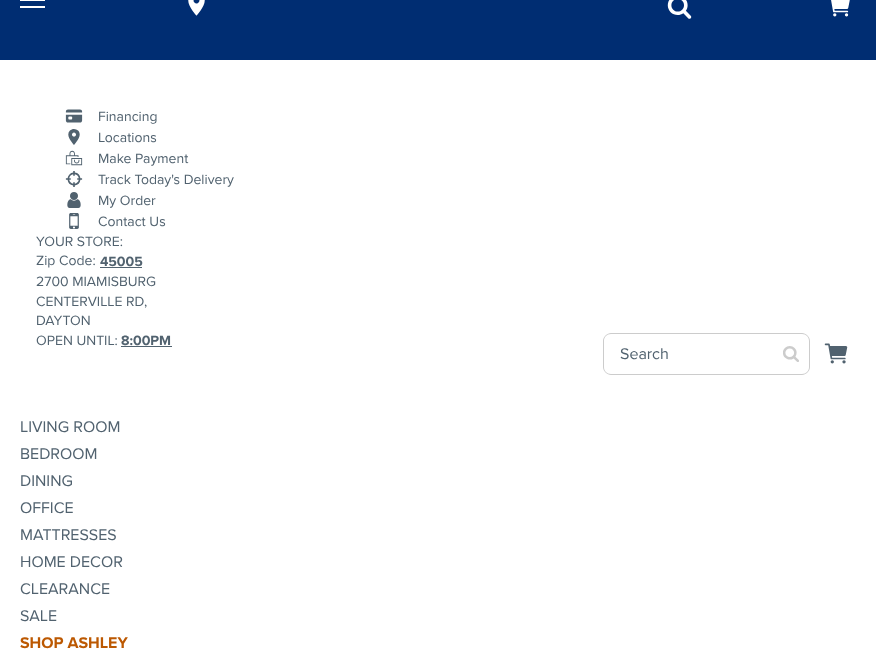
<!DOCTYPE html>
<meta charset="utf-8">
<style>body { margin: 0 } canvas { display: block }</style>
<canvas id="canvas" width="876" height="668"></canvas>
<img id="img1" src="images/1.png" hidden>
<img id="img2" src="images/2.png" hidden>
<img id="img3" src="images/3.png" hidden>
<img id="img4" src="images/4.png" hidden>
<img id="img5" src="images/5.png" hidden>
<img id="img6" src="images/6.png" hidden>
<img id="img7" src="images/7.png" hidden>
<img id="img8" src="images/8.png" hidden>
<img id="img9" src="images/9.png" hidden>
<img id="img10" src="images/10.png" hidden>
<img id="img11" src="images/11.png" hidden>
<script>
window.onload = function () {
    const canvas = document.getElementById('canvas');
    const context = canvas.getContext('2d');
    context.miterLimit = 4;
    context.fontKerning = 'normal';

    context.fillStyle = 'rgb(255, 255, 255)';
    context.fillRect(0, 0, 876, 668);
    context.fillStyle = 'rgb(0, 45, 114)';
    context.fillRect(0, 0, 876, 60);
    context.fillStyle = 'rgb(255, 255, 255)';
    context.fillRect(20, 0, 25, 1);
    context.fillRect(20, 6, 25, 2);
    context.drawImage(document.getElementById('img1'), 188, 0, 17, 16);
    context.drawImage(document.getElementById('img2'), 667, 0, 25, 19);
    context.drawImage(document.getElementById('img3'), 831, 0, 19, 17);
    context.drawImage(document.getElementById('img4'), 65, 109, 18, 14);
    context.drawImage(document.getElementById('img5'), 68, 129, 12, 16);
    context.drawImage(document.getElementById('img6'), 65, 150, 18, 16);
    context.drawImage(document.getElementById('img7'), 65, 171, 18, 16);
    context.drawImage(document.getElementById('img8'), 67, 192, 14, 16);
    context.drawImage(document.getElementById('img9'), 69, 213, 10, 16);
    context.fillStyle = 'rgb(81, 98, 111)';
    context.fillRect(100, 267, 42, 1);
    context.fillRect(121, 346, 51, 1);
    context.fillStyle = 'rgb(204, 204, 204)';
    context.beginPath();
    context.moveTo(611, 333);
    context.lineTo(772, 333);
    context.lineTo(772, 375);
    context.lineTo(611, 375);
    context.bezierCurveTo(607, 375, 603, 371, 603, 367);
    context.lineTo(603, 341);
    context.bezierCurveTo(603, 337, 607, 333, 611, 333);
    context.closePath();
    context.moveTo(611, 334);
    context.lineTo(772, 334);
    context.lineTo(772, 374);
    context.lineTo(611, 374);
    context.bezierCurveTo(607, 374, 604, 371, 604, 367);
    context.lineTo(604, 341);
    context.bezierCurveTo(604, 337, 607, 334, 611, 334);
    context.closePath();
    context.fill('evenodd');
    context.beginPath();
    context.moveTo(772, 333);
    context.lineTo(802, 333);
    context.bezierCurveTo(806, 333, 810, 337, 810, 341);
    context.lineTo(810, 367);
    context.bezierCurveTo(810, 371, 806, 375, 802, 375);
    context.lineTo(772, 375);
    context.closePath();
    context.moveTo(772, 334);
    context.lineTo(802, 334);
    context.bezierCurveTo(806, 334, 809, 337, 809, 341);
    context.lineTo(809, 367);
    context.bezierCurveTo(809, 371, 806, 374, 802, 374);
    context.lineTo(772, 374);
    context.closePath();
    context.fill('evenodd');
    context.drawImage(document.getElementById('img10'), 783, 346, 16, 16);
    context.drawImage(document.getElementById('img11'), 824, 343, 24, 21);
    context.font = '14px Proxima Nova';
    context.fillStyle = 'rgb(81, 98, 111)';
    context.fillText('Financing', 98, 121);
    context.fillText('Locations', 98, 142);
    context.fillText('Make Payment', 98, 163);
    context.fillText('Track Today\'s Delivery', 98, 184);
    context.fillText('My Order', 98, 205);
    context.fillText('Contact Us', 98, 226);
    context.fillText('YOUR STORE:', 36, 246);
    context.fillText('Zip Code:', 36, 265);
    context.font = 'bold 14px Proxima Nova';
    context.fillText('45005', 100, 266);
    context.font = '14px Proxima Nova';
    context.fillText('2700 MIAMISBURG', 36, 286);
    context.fillText('CENTERVILLE RD,', 36, 306);
    context.fillText('DAYTON', 36, 325);
    context.fillText('OPEN UNTIL:', 36, 345);
    context.font = 'bold 14px Proxima Nova';
    context.fillText('8:00PM', 121, 345);
    context.font = '16px Proxima Nova';
    context.fillText('Search', 620, 359);
    context.fillText('LIVING ROOM', 20, 432);
    context.fillText('BEDROOM', 20, 459);
    context.fillText('DINING', 20, 486);
    context.fillText('OFFICE', 20, 513);
    context.fillText('MATTRESSES', 20, 540);
    context.fillText('HOME DECOR', 20, 567);
    context.fillText('CLEARANCE', 20, 594);
    context.fillText('SALE', 20, 621);
    context.font = 'bold 16px Proxima Nova';
    context.fillStyle = 'rgb(188, 88, 1)';
    context.fillText('SHOP ASHLEY', 20, 648);
};
</script>
